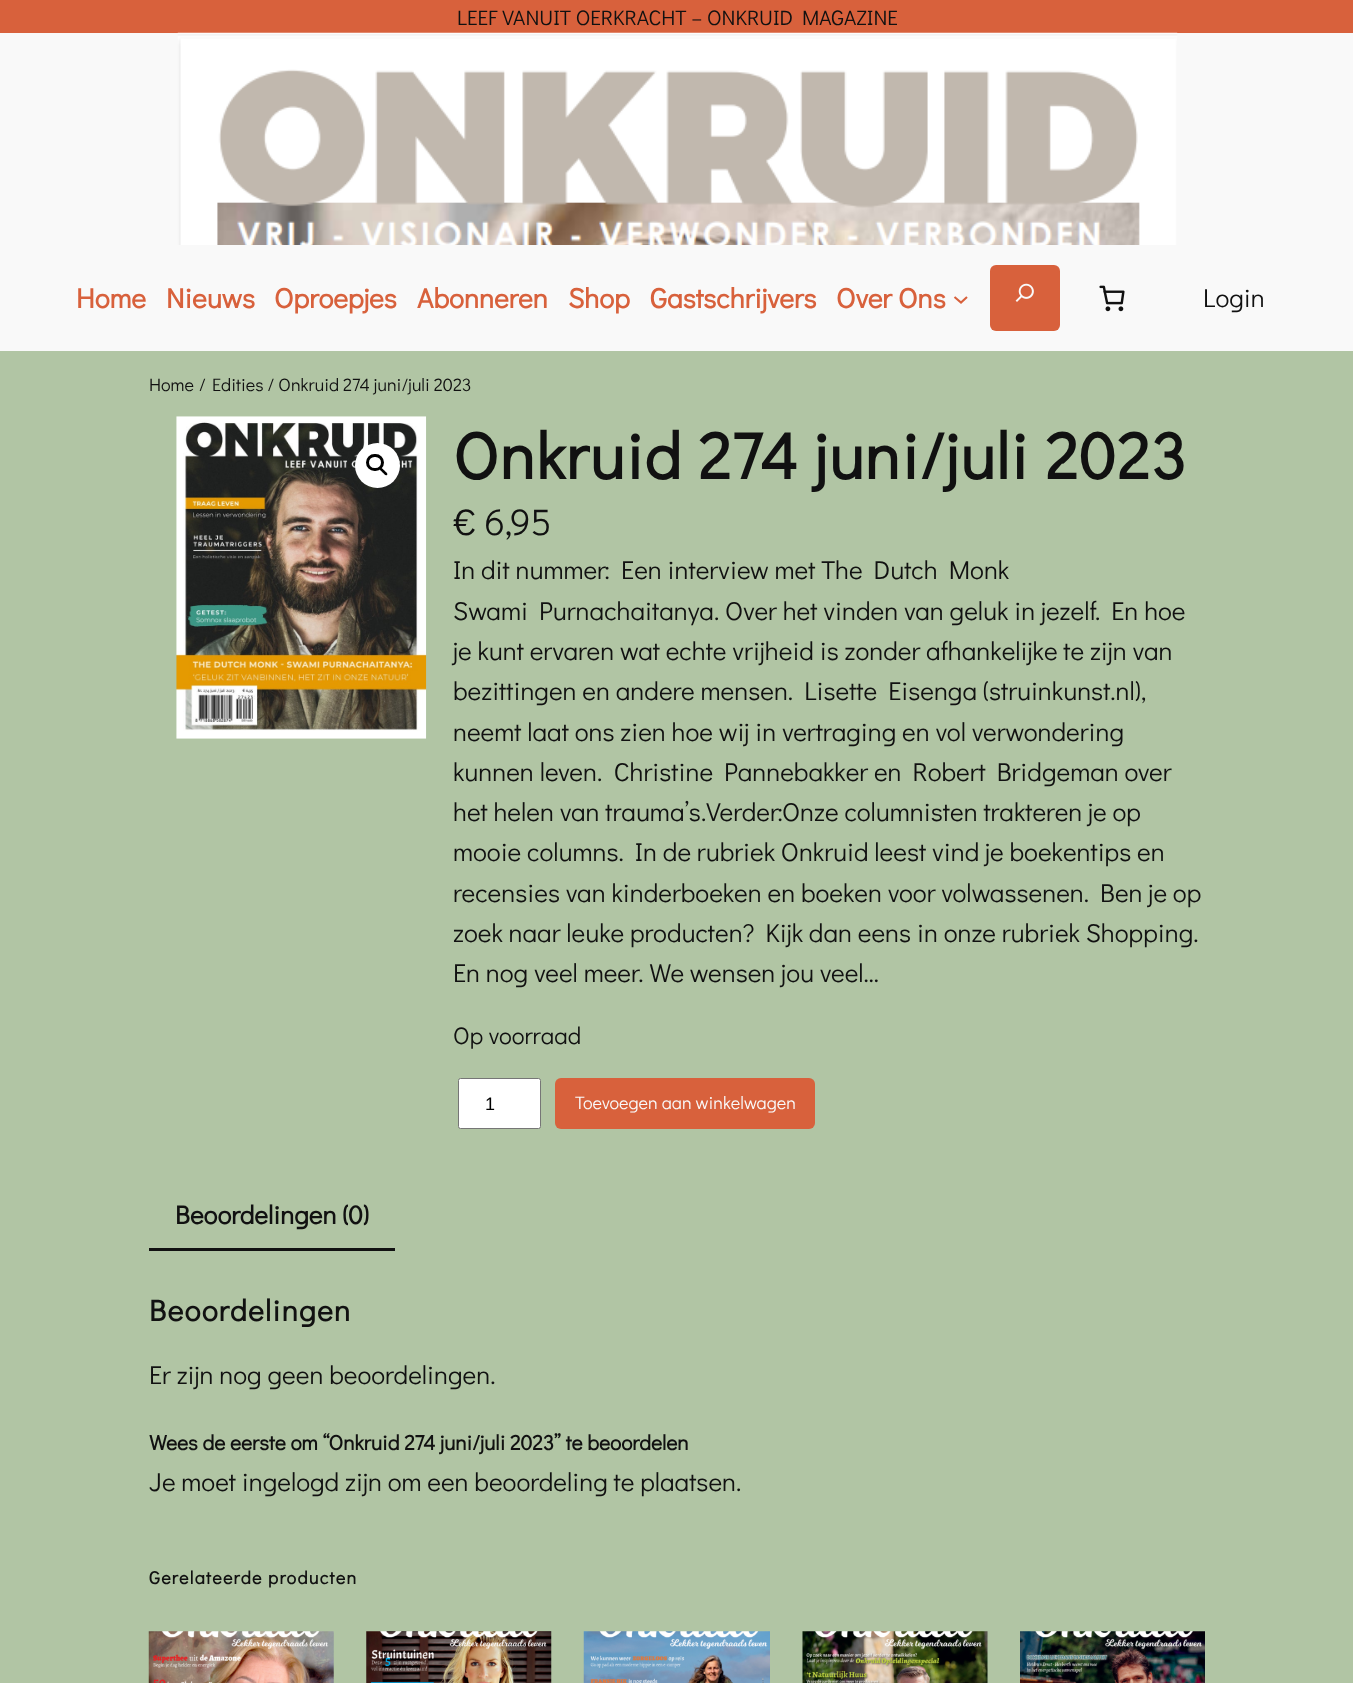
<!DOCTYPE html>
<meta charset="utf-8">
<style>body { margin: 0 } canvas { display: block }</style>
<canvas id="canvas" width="1353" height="1683"></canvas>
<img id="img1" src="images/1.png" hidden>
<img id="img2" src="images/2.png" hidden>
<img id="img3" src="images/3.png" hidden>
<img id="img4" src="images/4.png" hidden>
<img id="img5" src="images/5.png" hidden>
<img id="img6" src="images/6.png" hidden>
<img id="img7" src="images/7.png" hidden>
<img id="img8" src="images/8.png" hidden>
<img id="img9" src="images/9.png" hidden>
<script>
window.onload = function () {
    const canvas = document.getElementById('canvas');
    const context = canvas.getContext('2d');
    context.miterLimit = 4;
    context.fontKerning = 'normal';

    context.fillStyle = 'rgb(177, 197, 164)';
    context.fillRect(0, 0, 1353, 1683);
    context.fillStyle = 'rgb(216, 97, 60)';
    context.fillRect(0, 0, 1353, 33);
    context.fillStyle = 'rgb(249, 249, 249)';
    context.fillRect(0, 33, 1353, 318);
    context.drawImage(document.getElementById('img1'), 177, 32, 1001, 213);
    context.beginPath();
    context.moveTo(954.5, 297);
    context.lineTo(961, 302.5);
    context.lineTo(967, 297);
    context.strokeStyle = 'rgb(216, 97, 60)';
    context.lineWidth = 2.1;
    context.stroke();
    context.fillStyle = 'rgb(216, 97, 60)';
    context.beginPath();
    context.roundRect(990, 265, 70, 66, 6);
    context.fill();
    context.drawImage(document.getElementById('img2'), 1015, 283, 19, 19);
    context.drawImage(document.getElementById('img3'), 1099, 285, 26, 27);
    context.drawImage(document.getElementById('img4'), 176, 416, 251, 323);
    context.fillStyle = 'rgb(255, 255, 255)';
    context.beginPath();
    context.arc(377.5, 465.5, 22.5, 0, 2 * Math.PI);
    context.fill();
    context.beginPath();
    context.roundRect(367.5, 455.5, 15, 14, 7);
    context.strokeStyle = 'rgb(0, 0, 0)';
    context.lineWidth = 3;
    context.stroke();
    context.fillStyle = 'rgb(0, 0, 0)';
    context.beginPath();
    context.moveTo(380, 468);
    context.bezierCurveTo(381.5, 466.5, 383.5, 470, 384.5, 470.5);
    context.bezierCurveTo(385, 471.5, 388.5, 473.5, 387, 475);
    context.bezierCurveTo(385.5, 476.5, 383.5, 473, 382.5, 472.5);
    context.bezierCurveTo(382, 471.5, 378.5, 469.5, 380, 468);
    context.closePath();
    context.fill();
    context.fillStyle = 'rgb(255, 255, 255)';
    context.beginPath();
    context.roundRect(458.5, 1078.5, 82, 50, 2);
    context.fill();
    context.strokeStyle = 'rgb(118, 118, 118)';
    context.lineWidth = 1;
    context.stroke();
    context.fillStyle = 'rgb(216, 97, 60)';
    context.beginPath();
    context.roundRect(555, 1078, 260, 51, 6);
    context.fill();
    context.fillStyle = 'rgb(17, 17, 17)';
    context.fillRect(149, 1248, 246, 3);
    context.drawImage(document.getElementById('img5'), 148, 1631, 186, 52);
    context.drawImage(document.getElementById('img6'), 366, 1631, 186, 52);
    context.drawImage(document.getElementById('img7'), 583, 1631, 187, 52);
    context.drawImage(document.getElementById('img8'), 802, 1631, 186, 52);
    context.drawImage(document.getElementById('img9'), 1020, 1631, 185, 52);
    context.font = '21px Didact Gothic';
    context.fillText('LEEF VANUIT OERKRACHT – ONKRUID MAGAZINE', 457, 25);
    context.font = 'bold 28px Didact Gothic';
    context.fillStyle = 'rgb(216, 97, 60)';
    context.fillText('Home', 76, 308);
    context.fillText('Nieuws', 166, 308);
    context.fillText('Oproepjes', 274, 308);
    context.fillText('Abonneren', 417, 308);
    context.fillText('Shop', 568, 308);
    context.fillText('Gastschrijvers', 650, 308);
    context.fillText('Over Ons', 836, 308);
    context.font = '26px Didact Gothic';
    context.fillStyle = 'rgb(17, 17, 17)';
    context.fillText('Login', 1203, 307);
    context.font = '18px Didact Gothic';
    context.fillText('Home', 149, 391);
    context.fillText('/', 199, 391);
    context.fillText('Edities / Onkruid 274 juni/juli 2023', 212, 391);
    context.letterSpacing = '1.25px';
    context.font = 'bold 65.4px Didact Gothic';
    context.fillText('Onkruid 274 juni/juli 2023', 453, 479);
    context.letterSpacing = '0px';
    context.font = '37px Didact Gothic';
    context.fillText('€ 6,95', 453, 535);
    context.font = '26px Didact Gothic';
    context.fillText('In dit nummer: Een interview met The Dutch Monk', 453, 579);
    context.fillText('Swami Purnachaitanya. Over het vinden van geluk in jezelf. En hoe', 453, 620);
    context.fillText('je kunt ervaren wat echte vrijheid is zonder afhankelijke te zijn van', 453, 660);
    context.fillText('bezittingen en andere mensen. Lisette Eisenga (struinkunst.nl),', 453, 700);
    context.fillText('neemt laat ons zien hoe wij in vertraging en vol verwondering', 453, 741);
    context.fillText('kunnen leven.  Christine Pannebakker en Robert Bridgeman over', 453, 781);
    context.fillText('het helen van trauma’s.Verder:Onze columnisten trakteren je op', 453, 821);
    context.fillText('mooie columns. In de rubriek Onkruid leest vind je boekentips en', 453, 861);
    context.fillText('recensies van kinderboeken en boeken voor volwassenen. Ben je op', 453, 902);
    context.fillText('zoek naar leuke producten? Kijk dan eens in onze rubriek Shopping.', 453, 942);
    context.fillText('En nog veel meer. We wensen jou veel…', 453, 982);
    context.font = '24px Didact Gothic';
    context.fillText('Op voorraad', 453, 1044);
    context.font = '18px Liberation Sans';
    context.fillStyle = 'rgb(0, 0, 0)';
    context.fillText('1', 485, 1110);
    context.font = '18px Didact Gothic';
    context.fillStyle = 'rgb(249, 249, 249)';
    context.fillText('Toevoegen aan winkelwagen', 575, 1109);
    context.font = 'bold 26px Didact Gothic';
    context.fillStyle = 'rgb(17, 17, 17)';
    context.fillText('Beoordelingen (0)', 175, 1224);
    context.letterSpacing = '1.25px';
    context.font = 'bold 30px Didact Gothic';
    context.fillText('Beoordelingen', 149, 1321);
    context.letterSpacing = '0px';
    context.font = '26px Didact Gothic';
    context.fillText('Er zijn nog geen beoordelingen.', 149, 1384);
    context.font = 'bold 21px Didact Gothic';
    context.fillText('Wees de eerste om “Onkruid 274 juni/juli 2023” te beoordelen', 149, 1450);
    context.font = '26px Didact Gothic';
    context.fillText('Je moet ingelogd zijn om een beoordeling te plaatsen.', 149, 1491);
    context.letterSpacing = '1.25px';
    context.font = 'bold 18px Didact Gothic';
    context.fillText('Gerelateerde producten', 149, 1584);
};
</script>
